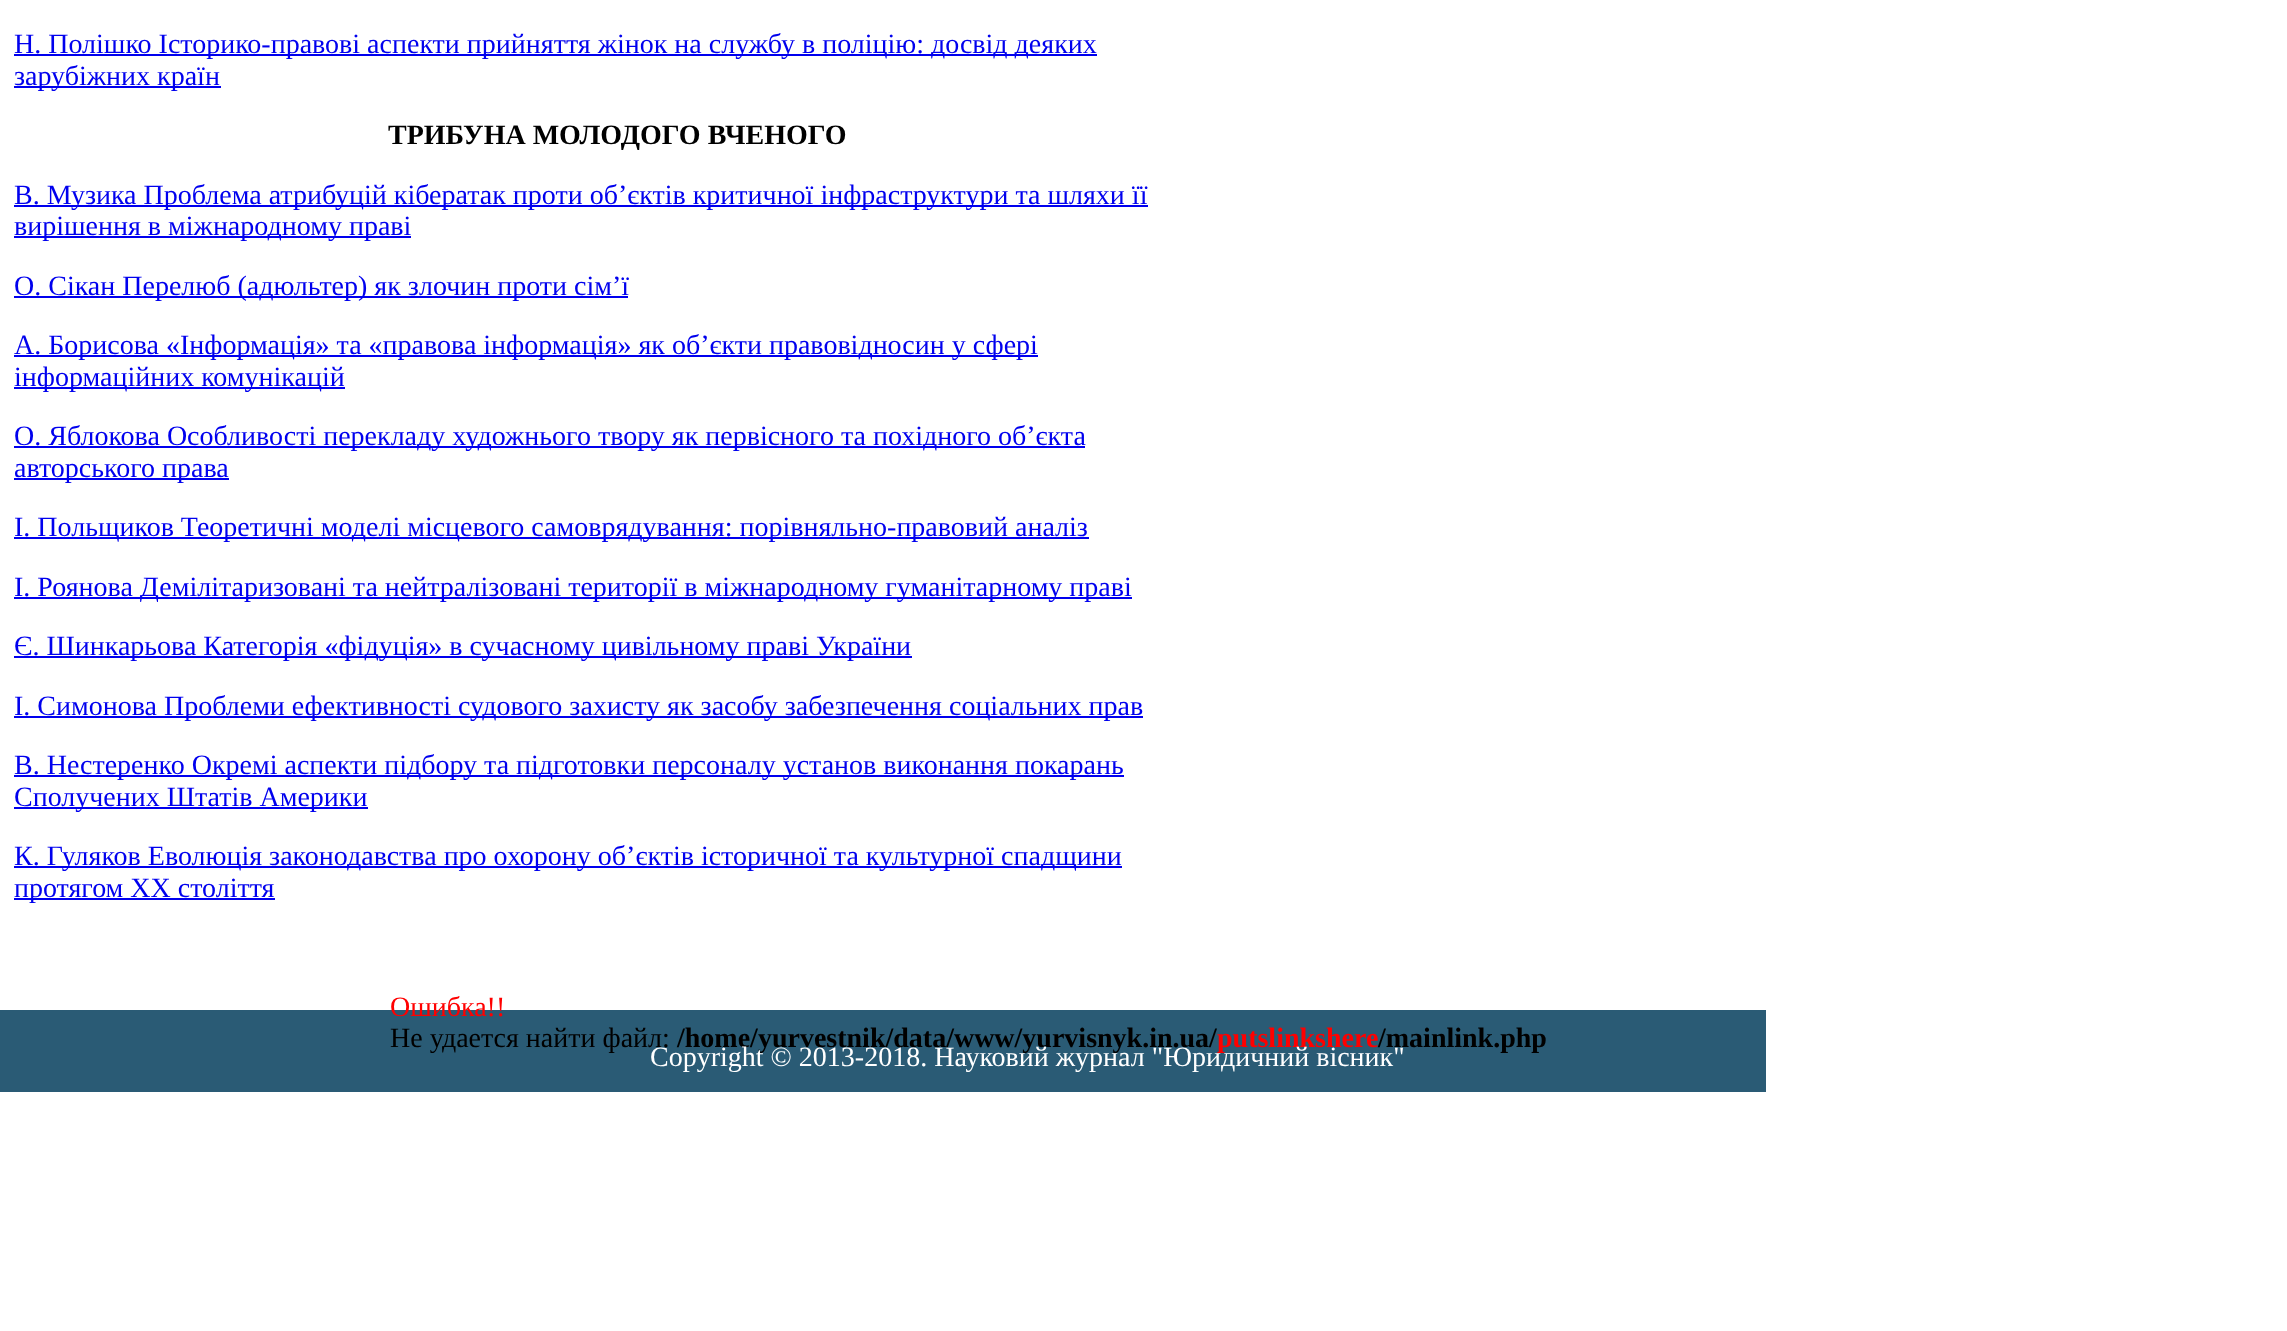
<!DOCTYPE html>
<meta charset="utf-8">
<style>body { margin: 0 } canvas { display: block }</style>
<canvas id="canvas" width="2287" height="1331"></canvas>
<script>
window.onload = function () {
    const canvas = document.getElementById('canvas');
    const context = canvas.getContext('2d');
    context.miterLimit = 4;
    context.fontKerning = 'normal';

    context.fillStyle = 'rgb(255, 255, 255)';
    context.fillRect(0, 0, 2287, 1331);
    context.fillStyle = 'rgb(0, 0, 238)';
    context.fillRect(14, 54, 1083, 2);
    context.fillRect(14, 86, 207, 2);
    context.fillRect(14, 205, 1134, 2);
    context.fillRect(14, 236, 397, 2);
    context.fillRect(14, 296, 614, 2);
    context.fillRect(14, 355, 1024, 2);
    context.fillRect(14, 387, 331, 2);
    context.fillRect(14, 446, 1071, 2);
    context.fillRect(14, 478, 215, 2);
    context.fillRect(14, 537, 1075, 2);
    context.fillRect(14, 597, 1118, 2);
    context.fillRect(14, 656, 898, 2);
    context.fillRect(14, 716, 1129, 2);
    context.fillRect(14, 775, 1110, 2);
    context.fillRect(14, 807, 354, 2);
    context.fillRect(14, 866, 1108, 2);
    context.fillRect(14, 898, 261, 2);
    context.fillStyle = 'rgb(42, 91, 117)';
    context.fillRect(0, 1010, 1766, 82);
    context.font = '28px Liberation Serif';
    context.fillStyle = 'rgb(0, 0, 238)';
    context.fillText('Н. Полішко Історико-правові аспекти прийняття жінок на службу в поліцію: досвід деяких', 14, 53);
    context.fillText('зарубіжних країн', 14, 85);
    context.font = 'bold 28px Liberation Serif';
    context.fillStyle = 'rgb(0, 0, 0)';
    context.fillText('ТРИБУНА МОЛОДОГО ВЧЕНОГО', 388, 144);
    context.font = '28px Liberation Serif';
    context.fillStyle = 'rgb(0, 0, 238)';
    context.fillText('В. Музика Проблема атрибуцій кібератак проти об’єктів критичної інфраструктури та шляхи її', 14, 204);
    context.fillText('вирішення в міжнародному праві', 14, 235);
    context.fillText('О. Сікан Перелюб (адюльтер) як злочин проти сім’ї', 14, 295);
    context.fillText('А. Борисова «Інформація» та «правова інформація» як об’єкти правовідносин у сфері', 14, 354);
    context.fillText('інформаційних комунікацій', 14, 386);
    context.fillText('О. Яблокова Особливості перекладу художнього твору як первісного та похідного об’єкта', 14, 445);
    context.fillText('авторського права', 14, 477);
    context.fillText('І. Польщиков Теоретичні моделі місцевого самоврядування: порівняльно-правовий аналіз', 14, 536);
    context.fillText('І. Роянова Демілітаризовані та нейтралізовані території в міжнародному гуманітарному праві', 14, 596);
    context.fillText('Є. Шинкарьова Категорія «фідуція» в сучасному цивільному праві України', 14, 655);
    context.fillText('І. Симонова Проблеми ефективності судового захисту як засобу забезпечення соціальних прав', 14, 715);
    context.fillText('В. Нестеренко Окремі аспекти підбору та підготовки персоналу установ виконання покарань', 14, 774);
    context.fillText('Сполучених Штатів Америки', 14, 806);
    context.fillText('К. Гуляков Еволюція законодавства про охорону об’єктів історичної та культурної спадщини', 14, 865);
    context.fillText('протягом ХХ століття', 14, 897);
    context.fillStyle = 'rgb(255, 0, 0)';
    context.fillText('Ошибка!!', 390, 1016);
    context.fillStyle = 'rgb(0, 0, 0)';
    context.fillText('Не удается найти файл:', 390, 1047);
    context.font = 'bold 28px Liberation Serif';
    context.fillText('/home/yurvestnik/data/www/yurvisnyk.in.ua/', 677, 1047);
    context.fillStyle = 'rgb(255, 0, 0)';
    context.fillText('putslinkshere', 1217, 1047);
    context.fillStyle = 'rgb(0, 0, 0)';
    context.fillText('/mainlink.php', 1378, 1047);
    context.font = '28px Liberation Serif';
    context.fillStyle = 'rgb(255, 255, 255)';
    context.fillText('Copyright © 2013-2018. Науковий журнал "Юридичний вісник"', 650, 1066);
};
</script>
